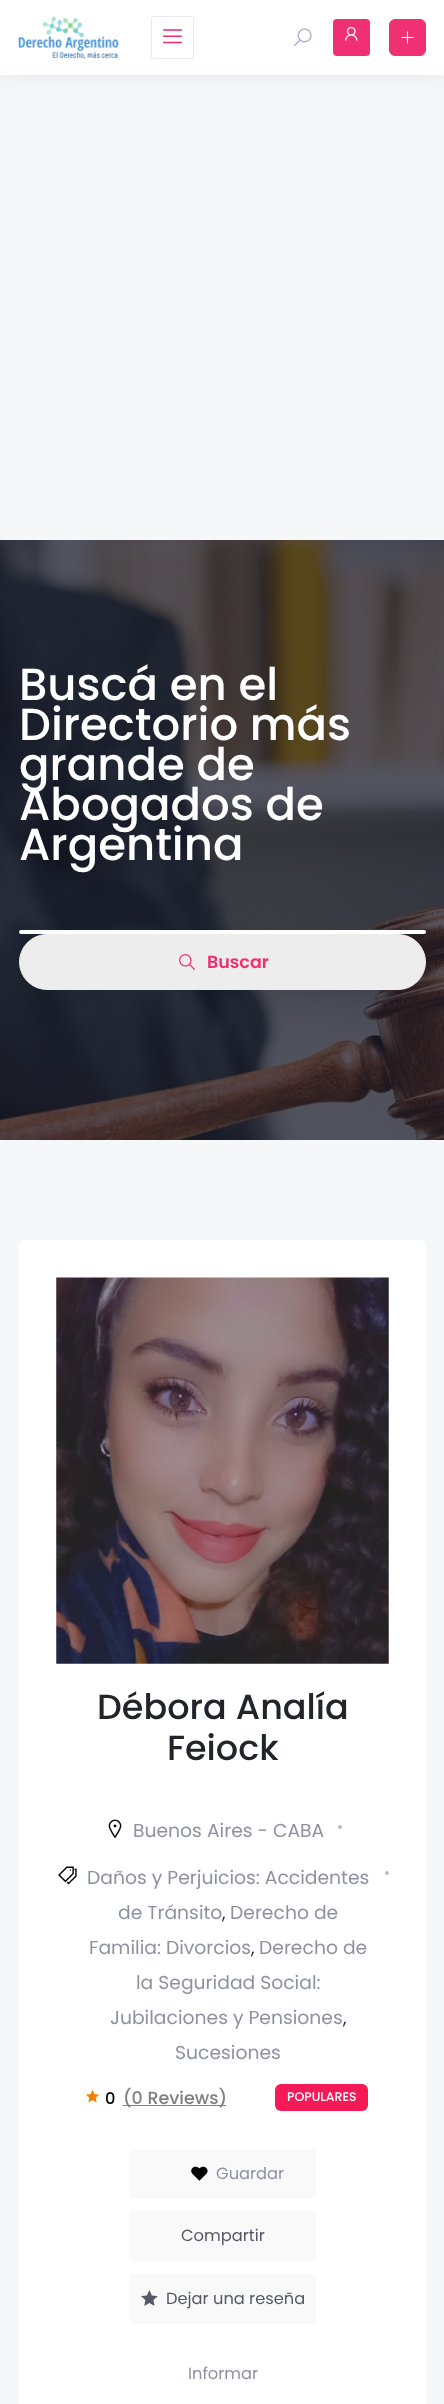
<!DOCTYPE html>
<meta charset="utf-8">
<style>body { margin: 0 } canvas { display: block }</style>
<canvas id="canvas" width="444" height="2404"></canvas>
<img id="img1" src="images/1.png" hidden>
<img id="img2" src="images/2.png" hidden>
<img id="img3" src="images/3.png" hidden>
<img id="img4" src="images/4.png" hidden>
<img id="img5" src="images/5.png" hidden>
<img id="img6" src="images/6.png" hidden>
<img id="img7" src="images/7.png" hidden>
<img id="img8" src="images/8.png" hidden>
<img id="img9" src="images/9.png" hidden>
<img id="img10" src="images/10.png" hidden>
<img id="img11" src="images/11.png" hidden>
<img id="img12" src="images/12.png" hidden>
<img id="img13" src="images/13.png" hidden>
<script>
window.onload = function () {
    const canvas = document.getElementById('canvas');
    const context = canvas.getContext('2d');
    context.miterLimit = 4;
    context.fontKerning = 'normal';

    context.fillStyle = 'rgb(246, 247, 248)';
    context.fillRect(0, 0, 444, 2404);
    context.fillStyle = 'rgba(146, 153, 184, 0.1)';
    context.filter = 'blur(9.5px)';
    context.beginPath();
    context.rect(0, 6, 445, 75);
    context.fill();
    context.filter = 'none';
    context.fillStyle = 'rgb(255, 255, 255)';
    context.fillRect(0, 0, 444, 75);
    context.drawImage(document.getElementById('img1'), 18, 16, 101, 43);
    context.beginPath();
    context.roundRect(151.5, 16.5, 42, 42, 2);
    context.strokeStyle = 'rgb(233, 235, 244)';
    context.stroke();
    context.drawImage(document.getElementById('img2'), 163, 29, 19, 15);
    context.drawImage(document.getElementById('img3'), 293, 28, 19, 19);
    context.fillStyle = 'rgb(239, 48, 114)';
    context.beginPath();
    context.roundRect(333, 19, 37, 37, 4);
    context.fill();
    context.drawImage(document.getElementById('img4'), 345, 26, 13, 15);
    context.beginPath();
    context.roundRect(389.5, 19.5, 36, 36, 5.5);
    context.fill();
    context.strokeStyle = 'rgb(239, 48, 114)';
    context.stroke();
    context.drawImage(document.getElementById('img5'), 401, 31, 13, 13);
    context.drawImage(document.getElementById('img6'), 0, 540, 444, 600);
    context.fillStyle = 'rgb(255, 255, 255)';
    context.beginPath();
    context.roundRect(19, 930, 407, 4, 2);
    context.fill();
    context.fillStyle = 'rgb(237, 237, 237)';
    context.beginPath();
    context.roundRect(19.5, 934.5, 406, 55, 27.5);
    context.fill();
    context.strokeStyle = 'rgb(237, 237, 237)';
    context.stroke();
    context.drawImage(document.getElementById('img7'), 179, 954, 17, 17);
    context.fillStyle = 'rgb(255, 255, 255)';
    context.beginPath();
    context.roundRect(19, 1240, 407, 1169, 5);
    context.fill();
    context.drawImage(document.getElementById('img8'), 56, 1277, 333, 387);
    context.drawImage(document.getElementById('img9'), 108, 1819, 14, 20);
    context.fillStyle = 'rgb(188, 188, 188)';
    context.beginPath();
    context.arc(340, 1827, 2, 0, 2 * Math.PI);
    context.fill();
    context.drawImage(document.getElementById('img10'), 58, 1866, 19, 19);
    context.beginPath();
    context.arc(387, 1873, 2, 0, 2 * Math.PI);
    context.fill();
    context.drawImage(document.getElementById('img11'), 85, 2089, 15, 14);
    context.fillStyle = 'rgb(128, 128, 128)';
    context.fillRect(123, 2105, 103, 1);
    context.fillStyle = 'rgb(245, 25, 87)';
    context.beginPath();
    context.roundRect(275, 2084, 93, 27, 6);
    context.fill();
    context.fillStyle = 'rgb(249, 249, 250)';
    context.beginPath();
    context.roundRect(129, 2149, 187, 50, 5);
    context.fill();
    context.drawImage(document.getElementById('img12'), 191, 2166, 17, 15);
    context.beginPath();
    context.roundRect(129, 2211, 187, 50, 5);
    context.fill();
    context.beginPath();
    context.roundRect(129, 2274, 187, 50, 5);
    context.fill();
    context.drawImage(document.getElementById('img13'), 141, 2290, 17, 16);
    context.font = '500 45px Poppins';
    context.fillStyle = 'rgb(255, 255, 255)';
    context.fillText('Buscá en el', 19, 700);
    context.fillText('Directorio más', 19, 740);
    context.fillText('grande de', 19, 780);
    context.fillText('Abogados de', 19, 820);
    context.fillText('Argentina', 19, 860);
    context.font = '600 17.5px Poppins';
    context.fillStyle = 'rgb(239, 48, 114)';
    context.fillText('Buscar', 207, 968);
    context.font = '500 35px Poppins';
    context.fillStyle = 'rgb(33, 37, 41)';
    context.fillText('Débora Analía', 97, 1719);
    context.fillText('Feiock', 167, 1760);
    context.font = '18.75px Poppins';
    context.fillStyle = 'rgb(141, 145, 162)';
    context.fillText('Buenos Aires - CABA', 133, 1837);
    context.fillText('Daños y Perjuicios: Accidentes', 87, 1884);
    context.fillText('de Tránsito', 118, 1919);
    context.font = '17.5px Poppins';
    context.fillStyle = 'rgb(33, 37, 41)';
    context.fillText(',', 222, 1919);
    context.font = '18.75px Poppins';
    context.fillStyle = 'rgb(141, 145, 162)';
    context.fillText('Derecho de', 230, 1919);
    context.fillText('Familia: Divorcios', 89, 1954);
    context.font = '17.5px Poppins';
    context.fillStyle = 'rgb(33, 37, 41)';
    context.fillText(',', 251, 1954);
    context.font = '18.75px Poppins';
    context.fillStyle = 'rgb(141, 145, 162)';
    context.fillText('Derecho de', 259, 1954);
    context.fillText('la Seguridad Social:', 136, 1989);
    context.fillText('Jubilaciones y Pensiones', 110, 2024);
    context.font = '17.5px Poppins';
    context.fillStyle = 'rgb(33, 37, 41)';
    context.fillText(',', 343, 2024);
    context.font = '18.75px Poppins';
    context.fillStyle = 'rgb(141, 145, 162)';
    context.fillText('Sucesiones', 175, 2059);
    context.font = '500 16.25px Poppins';
    context.fillStyle = 'rgb(0, 0, 0)';
    context.fillText('0', 105, 2104);
    context.font = '500 17.5px Poppins';
    context.fillStyle = 'rgb(128, 128, 128)';
    context.fillText('(0 Reviews)', 123, 2104);
    context.font = '500 12.5px Poppins';
    context.fillStyle = 'rgb(255, 255, 255)';
    context.fillText('POPULARES', 287, 2101);
    context.font = '16.25px Poppins';
    context.fillStyle = 'rgb(141, 145, 162)';
    context.fillText('Guardar', 216, 2179);
    context.fillStyle = 'rgb(86, 88, 101)';
    context.fillText('Compartir', 181, 2241);
    context.fillText('Dejar una reseña', 166, 2304);
    context.fillStyle = 'rgb(141, 145, 162)';
    context.fillText('Informar', 188, 2379);
};
</script>
